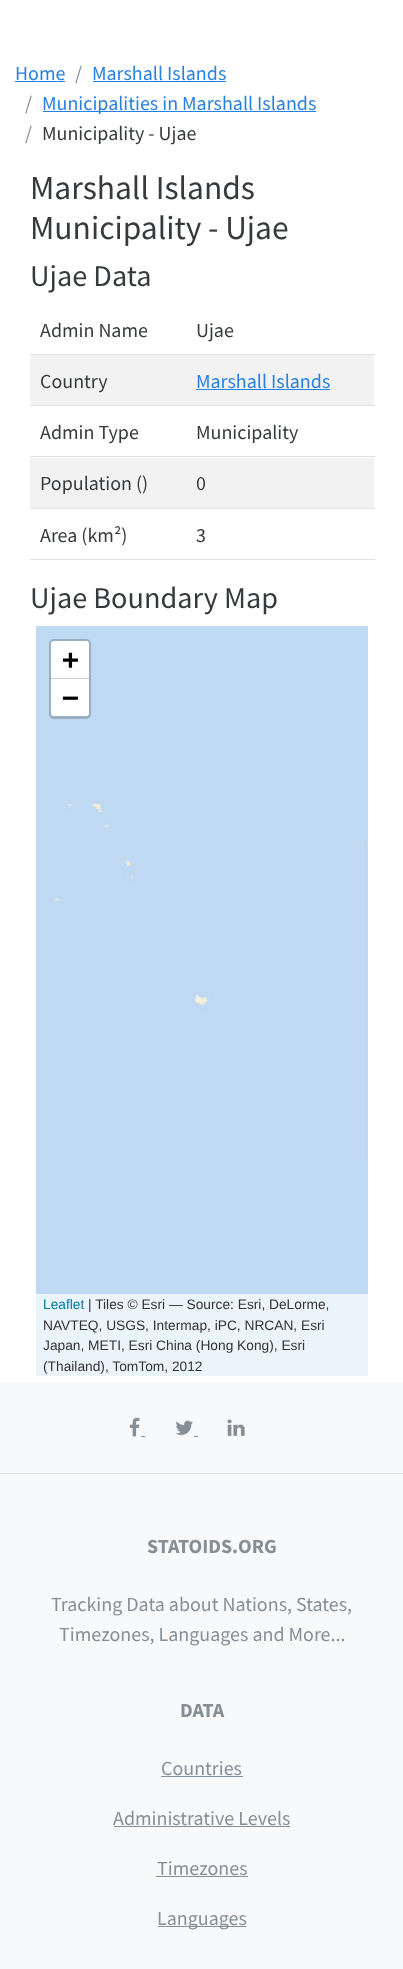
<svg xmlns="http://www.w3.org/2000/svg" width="403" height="1969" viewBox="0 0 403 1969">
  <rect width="100%" height="100%" fill="rgb(255,255,255)"/>
  <text x="15" y="80" font-family="Source Sans Pro" font-size="20" fill="rgb(39,128,227)">Home</text>
  <rect x="15" y="81" width="50" height="1" fill="rgb(39,128,227)"/>
  <text x="75" y="80" font-family="Source Sans Pro" font-size="20" fill="rgb(134,142,150)">/</text>
  <text x="92" y="80" font-family="Source Sans Pro" font-size="20" fill="rgb(39,128,227)">Marshall Islands</text>
  <rect x="93" y="81" width="133" height="1" fill="rgb(39,128,227)"/>
  <text x="25" y="110" font-family="Source Sans Pro" font-size="20" fill="rgb(134,142,150)">/</text>
  <rect x="43" y="111" width="273" height="1" fill="rgb(39,128,227)"/>
  <text x="42" y="110" font-family="Source Sans Pro" font-size="20" fill="rgb(39,128,227)">Municipalities in Marshall Islands</text>
  <text x="25" y="140" font-family="Source Sans Pro" font-size="20" fill="rgb(134,142,150)">/</text>
  <text x="42" y="140" font-family="Source Sans Pro" font-size="20" fill="rgb(55,58,60)">Municipality - Ujae</text>
  <g font-family="Source Sans Pro" font-size="33.5" fill="rgb(55,58,60)">
    <text>
      <tspan x="30" y="199">Marshall Islands</tspan>
      <tspan x="30" y="239">Municipality - Ujae</tspan>
    </text>
  </g>
  <text x="30" y="286" font-family="Source Sans Pro" font-size="30.25" fill="rgb(55,58,60)">Ujae Data</text>
  <text x="40" y="337" font-family="Source Sans Pro" font-size="20" fill="rgb(55,58,60)">Admin Name</text>
  <rect x="30" y="354" width="345" height="1" fill="rgb(222,226,230)"/>
  <text x="196" y="337" font-family="Source Sans Pro" font-size="20" fill="rgb(55,58,60)">Ujae</text>
  <rect x="30" y="355" width="344" height="50" fill="rgb(242,242,242)"/>
  <text x="40" y="388" font-family="Source Sans Pro" font-size="20" fill="rgb(55,58,60)">Country</text>
  <rect x="30" y="405" width="345" height="1" fill="rgb(222,226,230)"/>
  <text x="196" y="388" font-family="Source Sans Pro" font-size="20" fill="rgb(39,128,227)">Marshall Islands</text>
  <rect x="196" y="389" width="134" height="1" fill="rgb(39,128,227)"/>
  <text x="40" y="439" font-family="Source Sans Pro" font-size="20" fill="rgb(55,58,60)">Admin Type</text>
  <rect x="30" y="456" width="345" height="1" fill="rgb(222,226,230)"/>
  <text x="196" y="439" font-family="Source Sans Pro" font-size="20" fill="rgb(55,58,60)">Municipality</text>
  <rect x="30" y="458" width="344" height="50" fill="rgb(242,242,242)"/>
  <text x="40" y="490" font-family="Source Sans Pro" font-size="20" fill="rgb(55,58,60)">Population ()</text>
  <rect x="30" y="508" width="345" height="1" fill="rgb(222,226,230)"/>
  <g font-family="Source Sans Pro" font-size="20" fill="rgb(55,58,60)">
    <text x="196" y="490">0</text>
    <text x="40" y="542">Area (km²)</text>
  </g>
  <rect x="30" y="559" width="345" height="1" fill="rgb(222,226,230)"/>
  <text x="196" y="542" font-family="Source Sans Pro" font-size="20" fill="rgb(55,58,60)">3</text>
  <text x="30" y="608" font-family="Source Sans Pro" font-size="30.25" fill="rgb(55,58,60)">Ujae Boundary Map</text>
  <rect x="43" y="841" width="320" height="321" fill="rgb(221,221,221)"/>
  <rect x="36" y="626" width="7" height="536" fill="rgb(191,217,242)"/>
  <image x="43" y="626" width="320" height="216" href="pic1.png"/>
  <rect x="363" y="626" width="5" height="536" fill="rgb(191,217,242)"/>
  <image x="43" y="842" width="320" height="320" href="pic2.png"/>
  <rect x="36" y="1162" width="332" height="132" fill="rgb(191,217,242)"/>
  <rect x="50.5" y="640.5" width="39" height="77" rx="3.5" fill="none" stroke="rgb(153,174,194)" stroke-width="3"/>
  <path d="M53.5 641H86.5C88 641 89 642 89 643.5V679H51V643.5C51 642 52 641 53.5 641Z" fill="rgb(255,255,255)"/>
  <rect x="51" y="678" width="38" height="1" fill="rgb(204,204,204)"/>
  <text x="62" y="669" font-family="DejaVu Sans Mono" font-size="28" font-weight="bold" fill="rgb(0,0,0)">+</text>
  <path d="M51 679H89V713.5C89 715 88 716 86.5 716H53.5C52 716 51 715 51 713.5Z" fill="rgb(255,255,255)"/>
  <text x="62" y="707" font-family="DejaVu Sans Mono" font-size="28" font-weight="bold" fill="rgb(0,0,0)">−</text>
  <rect x="36" y="1294" width="332" height="82" fill="rgb(236,244,251)"/>
  <text x="43" y="1309" font-family="Liberation Sans" font-size="13.75" fill="rgb(0,120,168)">Leaflet</text>
  <g font-family="Liberation Sans" font-size="13.75" fill="rgb(51,51,51)">
    <text x="88" y="1309">| Tiles © Esri — Source: Esri, DeLorme,</text>
    <text>
      <tspan x="43" y="1330">NAVTEQ, USGS, Intermap, iPC, NRCAN, Esri</tspan>
      <tspan x="43" y="1350">Japan, METI, Esri China (Hong Kong), Esri</tspan>
      <tspan x="43" y="1371">(Thailand), TomTom, 2012</tspan>
    </text>
  </g>
  <rect x="0" y="1383" width="403" height="586" fill="rgb(248,249,250)"/>
  <rect x="0" y="1473" width="403" height="1" fill="rgb(222,226,230)"/>
  <image x="129" y="1417" width="11" height="20" href="pic3.png"/>
  <rect x="141" y="1436" width="4" height="1" fill="rgb(134,142,150)"/>
  <image x="175" y="1420" width="18" height="15" href="pic4.png"/>
  <rect x="194" y="1436" width="4" height="1" fill="rgb(134,142,150)"/>
  <image x="227" y="1419" width="18" height="17" href="pic5.png"/>
  <text x="147" y="1553" font-family="Source Sans Pro" font-size="20" font-weight="bold" fill="rgb(134,142,150)">STATOIDS.ORG</text>
  <g font-family="Source Sans Pro" font-size="20" fill="rgb(134,142,150)">
    <text x="51" y="1611">Tracking Data about Nations, States,</text>
    <text x="59" y="1641">Timezones, Languages and More...</text>
  </g>
  <text x="180" y="1717" font-family="Source Sans Pro" font-size="20" font-weight="bold" fill="rgb(134,142,150)">DATA</text>
  <text x="161" y="1775" font-family="Source Sans Pro" font-size="20" fill="rgb(134,142,150)">Countries</text>
  <rect x="161" y="1776" width="82" height="1" fill="rgb(134,142,150)"/>
  <text x="113" y="1825" font-family="Source Sans Pro" font-size="20" fill="rgb(134,142,150)">Administrative Levels</text>
  <rect x="114" y="1826" width="176" height="1" fill="rgb(134,142,150)"/>
  <text x="157" y="1875" font-family="Source Sans Pro" font-size="20" fill="rgb(134,142,150)">Timezones</text>
  <rect x="156" y="1876" width="92" height="1" fill="rgb(134,142,150)"/>
  <rect x="158" y="1926" width="88" height="1" fill="rgb(134,142,150)"/>
  <text x="157" y="1925" font-family="Source Sans Pro" font-size="20" fill="rgb(134,142,150)">Languages</text>
</svg>
